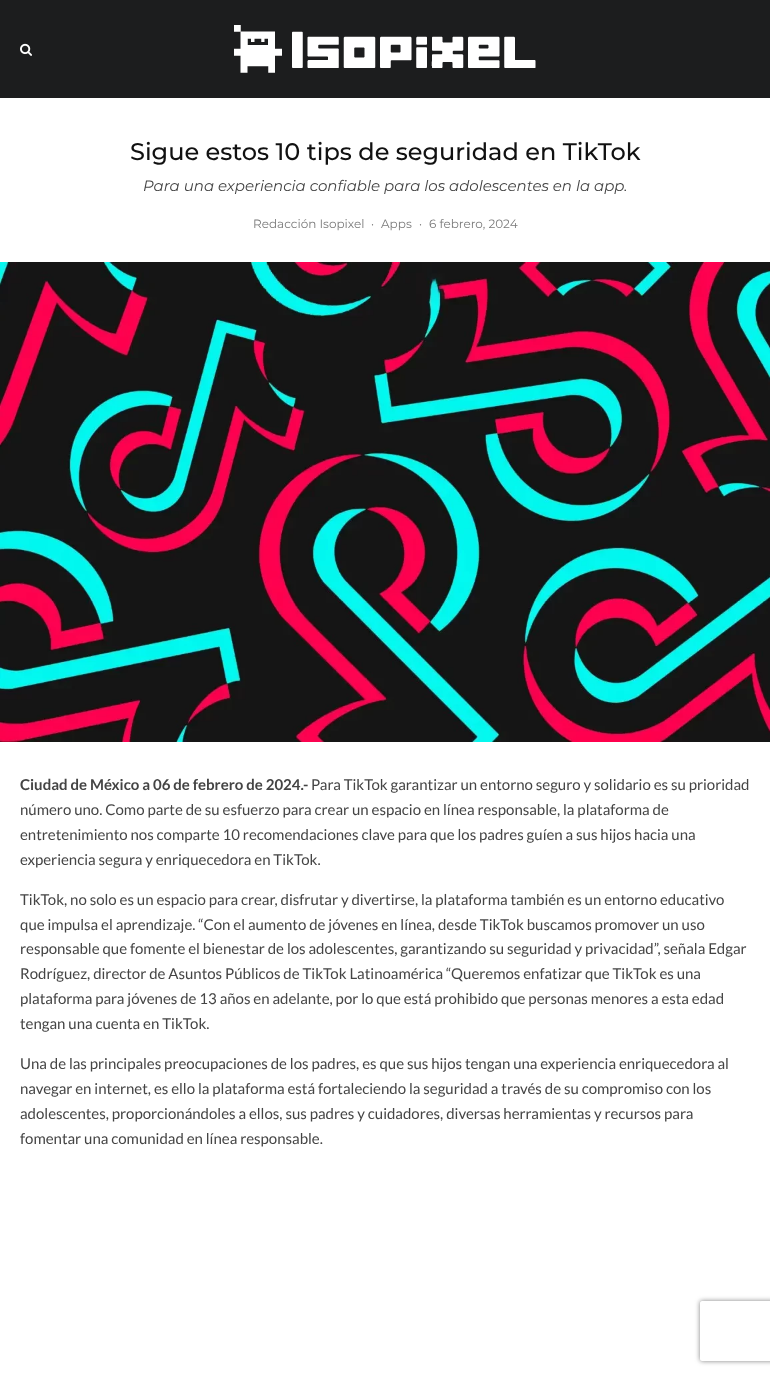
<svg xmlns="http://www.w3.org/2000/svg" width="770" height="1375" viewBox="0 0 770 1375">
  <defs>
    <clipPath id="clip1"><path d="M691 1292H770V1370H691ZM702 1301H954C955 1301 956 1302 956 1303V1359C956 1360 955 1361 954 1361H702C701 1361 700 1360 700 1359V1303C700 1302 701 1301 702 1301Z" clip-rule="evenodd"/></clipPath>
  </defs>
  <rect width="100%" height="100%" fill="rgb(255,255,255)"/>
  <rect x="0" y="0" width="770" height="98" fill="rgb(28,29,30)"/>
  <image x="20" y="43" width="12" height="13" href="pic1.png"/>
  <image x="234" y="25" width="302" height="48" href="pic2.png"/>
  <text x="130" y="160" font-family="Montserrat" font-size="24" font-weight="500" fill="rgb(17,17,17)">Sigue estos 10 tips de seguridad en TikTok</text>
  <text x="143" y="191" font-family="Montserrat" font-size="15" font-weight="100" font-style="italic" fill="rgb(68,68,68)">Para una experiencia confiable para los adolescentes en la app.</text>
  <g font-family="Montserrat" font-size="12" fill="rgb(122,122,122)">
    <text x="253" y="228">Redacción Isopixel</text>
    <text x="371" y="228">·</text>
    <text x="381" y="228">Apps</text>
    <text x="419" y="228">·</text>
    <text x="429" y="228">6 febrero, 2024</text>
  </g>
  <image x="0" y="262" width="770" height="480" href="pic3.png"/>
  <text x="20" y="790" font-family="Lato" font-size="15" font-weight="bold" fill="rgb(68,68,68)">Ciudad de México a 06 de febrero de 2024.-</text>
  <g font-family="Lato" font-size="15" fill="rgb(68,68,68)">
    <text x="311" y="790">Para TikTok garantizar un entorno seguro y solidario es su prioridad</text>
    <text>
      <tspan x="20" y="815">número uno. Como parte de su esfuerzo para crear un espacio en línea responsable, la plataforma de</tspan>
      <tspan x="20" y="840">entretenimiento nos comparte 10 recomendaciones clave para que los padres guíen a sus hijos hacia una</tspan>
      <tspan x="20" y="865">experiencia segura y enriquecedora en TikTok.</tspan>
    </text>
    <text>
      <tspan x="20" y="905">TikTok, no solo es un espacio para crear, disfrutar y divertirse, la plataforma también es un entorno educativo</tspan>
      <tspan x="20" y="930">que impulsa el aprendizaje. “Con el aumento de jóvenes en línea, desde TikTok buscamos promover un uso</tspan>
      <tspan x="20" y="954">responsable que fomente el bienestar de los adolescentes, garantizando su seguridad y privacidad”, señala Edgar</tspan>
      <tspan x="20" y="979">Rodríguez, director de Asuntos Públicos de TikTok Latinoamérica “Queremos enfatizar que TikTok es una</tspan>
      <tspan x="20" y="1004">plataforma para jóvenes de 13 años en adelante, por lo que está prohibido que personas menores a esta edad</tspan>
      <tspan x="20" y="1029">tengan una cuenta en TikTok.</tspan>
    </text>
    <text>
      <tspan x="20" y="1069">Una de las principales preocupaciones de los padres, es que sus hijos tengan una experiencia enriquecedora al</tspan>
      <tspan x="20" y="1094">navegar en internet, es ello la plataforma está fortaleciendo la seguridad a través de su compromiso con los</tspan>
      <tspan x="20" y="1119">adolescentes, proporcionándoles a ellos, sus padres y cuidadores, diversas herramientas y recursos para</tspan>
      <tspan x="20" y="1144">fomentar una comunidad en línea responsable.</tspan>
    </text>
  </g>
  <g clip-path="url(#clip1)">
    <rect x="700" y="1301" width="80" height="60" rx="2" fill="rgb(128,128,128)" filter="blur(2.5px)"/>
  </g>
</svg>
